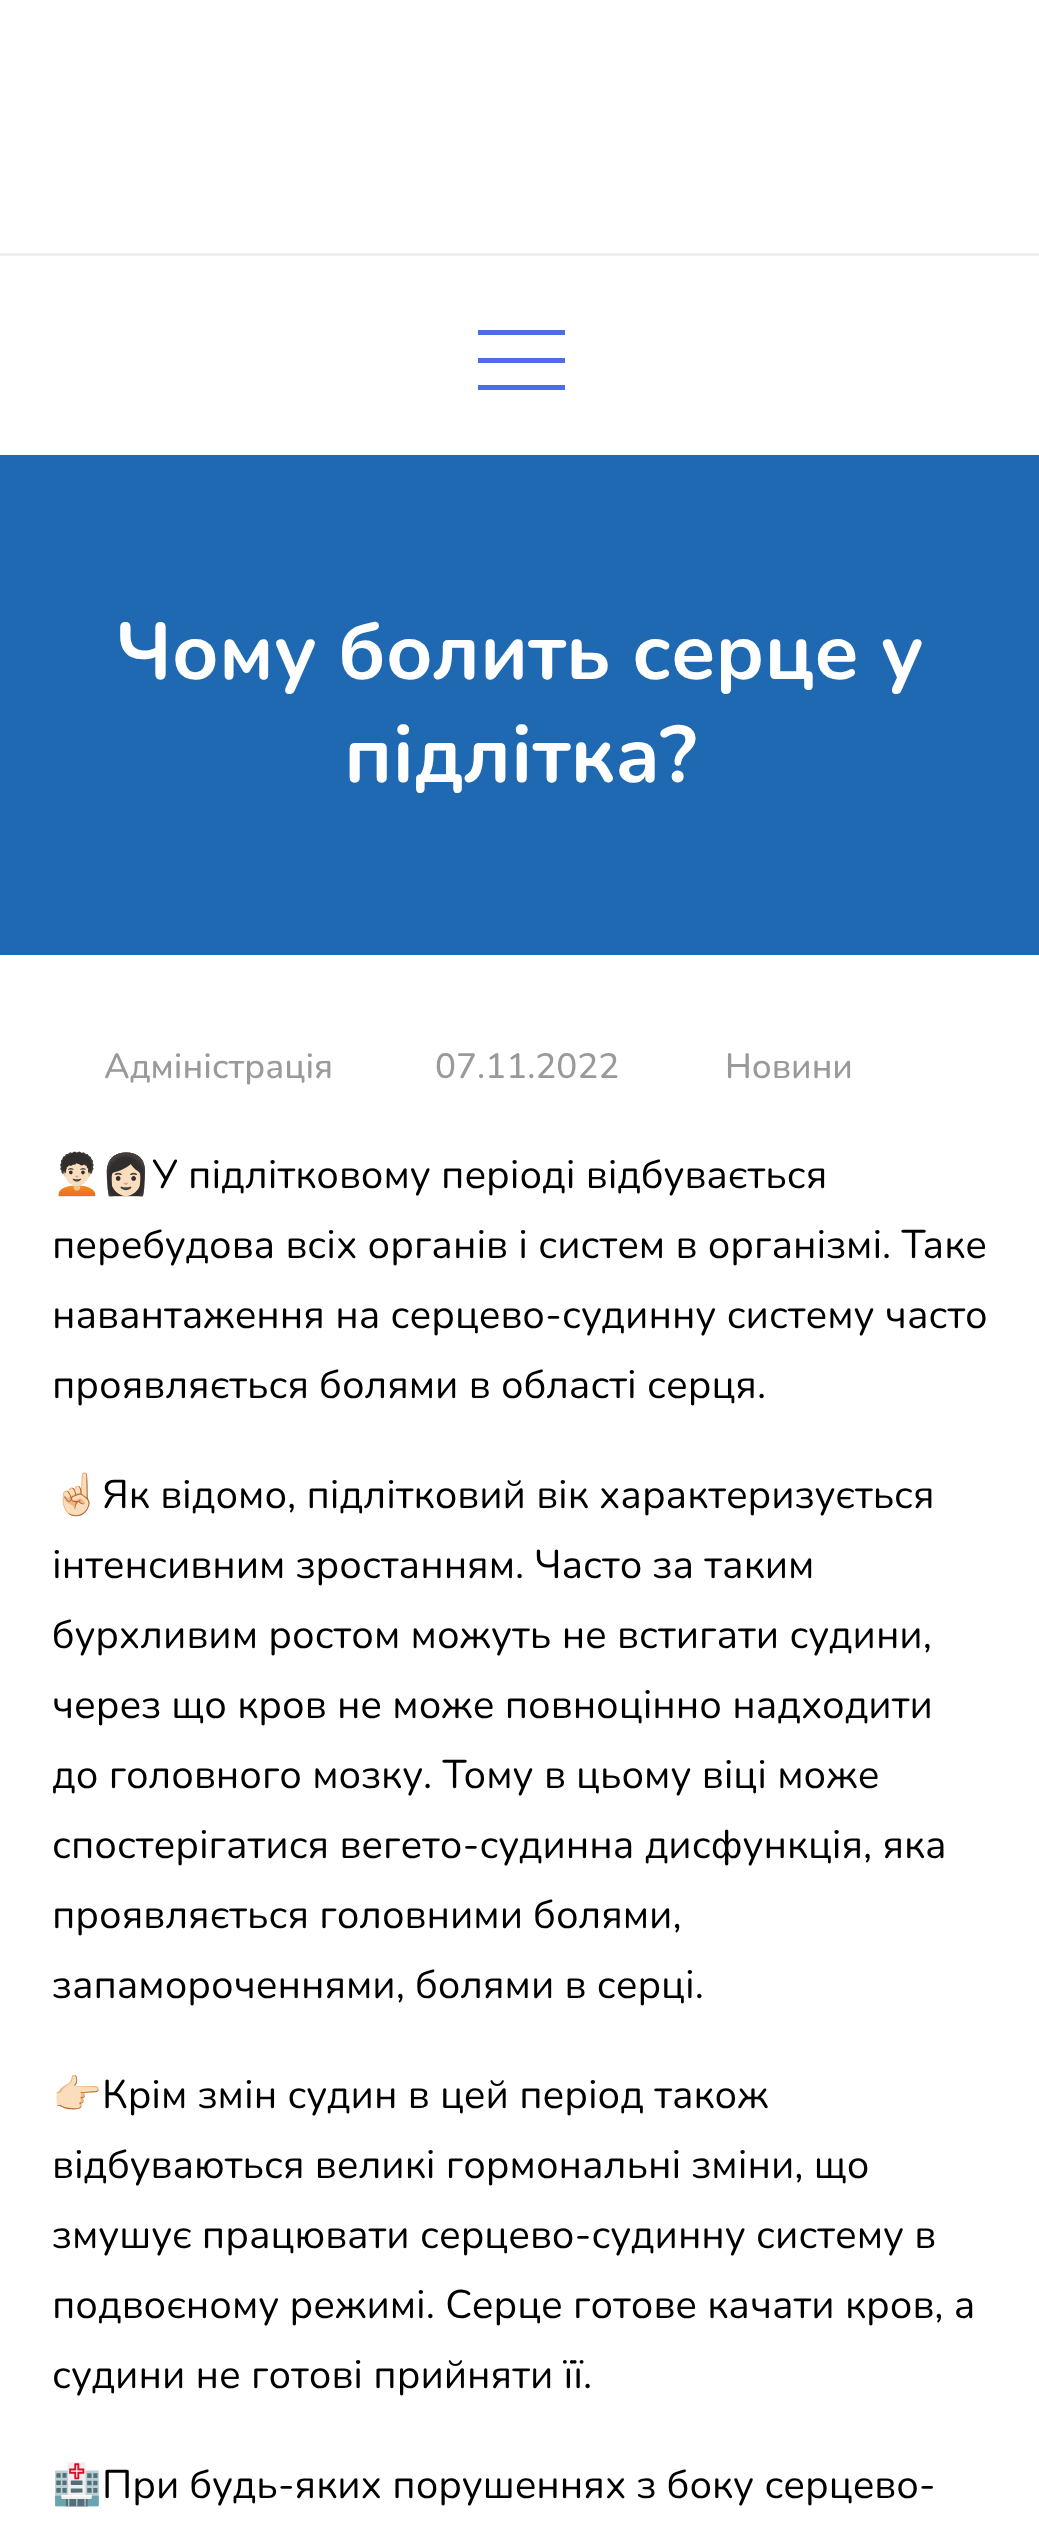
<svg xmlns="http://www.w3.org/2000/svg" width="1039" height="2541" viewBox="0 0 1039 2541">
  <rect width="100%" height="100%" fill="rgb(255,255,255)"/>
  <rect x="0" y="253" width="1039" height="3" fill="rgb(238,238,238)"/>
  <rect x="478" y="330" width="87" height="5" fill="rgb(77,109,230)"/>
  <rect x="478" y="358" width="87" height="5" fill="rgb(77,109,230)"/>
  <rect x="478" y="385" width="87" height="5" fill="rgb(77,109,230)"/>
  <rect x="0" y="455" width="1039" height="500" fill="rgb(31,105,178)"/>
  <g font-family="Nunito" font-size="80" font-weight="bold" fill="rgb(255,255,255)">
    <text x="116" y="679">Чому болить серце у</text>
    <text x="344" y="782">підлітка?</text>
  </g>
  <g font-family="Nunito" font-size="35" font-weight="500" fill="rgb(154,154,154)">
    <text x="104" y="1078">Адміністрація</text>
    <text x="435" y="1078">07.11.2022</text>
    <text x="725" y="1078">Новини</text>
  </g>
  <text x="52" y="1188" font-family="Noto Color Emoji" font-size="40" fill="rgb(0,0,0)">🧑🏻‍🦱👩🏻</text>
  <g font-family="Nunito" font-size="40" fill="rgb(0,0,0)">
    <text x="152" y="1188">У підлітковому періоді відбувається</text>
    <text>
      <tspan x="52" y="1258">перебудова всіх органів і систем в організмі. Таке</tspan>
      <tspan x="52" y="1328">навантаження на серцево-судинну систему часто</tspan>
      <tspan x="52" y="1398">проявляється болями в області серця.</tspan>
    </text>
  </g>
  <text x="52" y="1508" font-family="Noto Color Emoji" font-size="40" fill="rgb(0,0,0)">☝🏻</text>
  <g font-family="Nunito" font-size="40" fill="rgb(0,0,0)">
    <text x="102" y="1508">Як відомо, підлітковий вік характеризується</text>
    <text>
      <tspan x="52" y="1578">інтенсивним зростанням. Часто за таким</tspan>
      <tspan x="52" y="1648">бурхливим ростом можуть не встигати судини,</tspan>
      <tspan x="52" y="1718">через що кров не може повноцінно надходити</tspan>
      <tspan x="52" y="1788">до головного мозку. Тому в цьому віці може</tspan>
      <tspan x="52" y="1858">спостерігатися вегето-судинна дисфункція, яка</tspan>
      <tspan x="52" y="1928">проявляється головними болями,</tspan>
      <tspan x="52" y="1998">запамороченнями, болями в серці.</tspan>
    </text>
  </g>
  <text x="52" y="2108" font-family="Noto Color Emoji" font-size="40" fill="rgb(0,0,0)">👉🏻</text>
  <g font-family="Nunito" font-size="40" fill="rgb(0,0,0)">
    <text x="102" y="2108">Крім змін судин в цей період також</text>
    <text>
      <tspan x="52" y="2178">відбуваються великі гормональні зміни, що</tspan>
      <tspan x="52" y="2248">змушує працювати серцево-судинну систему в</tspan>
      <tspan x="52" y="2318">подвоєному режимі. Серце готове качати кров, а</tspan>
      <tspan x="52" y="2388">судини не готові прийняти її.</tspan>
    </text>
  </g>
  <text x="52" y="2498" font-family="Noto Color Emoji" font-size="40" fill="rgb(0,0,0)">🏥</text>
  <text x="102" y="2498" font-family="Nunito" font-size="40" fill="rgb(0,0,0)">При будь-яких порушеннях з боку серцево-</text>
</svg>
